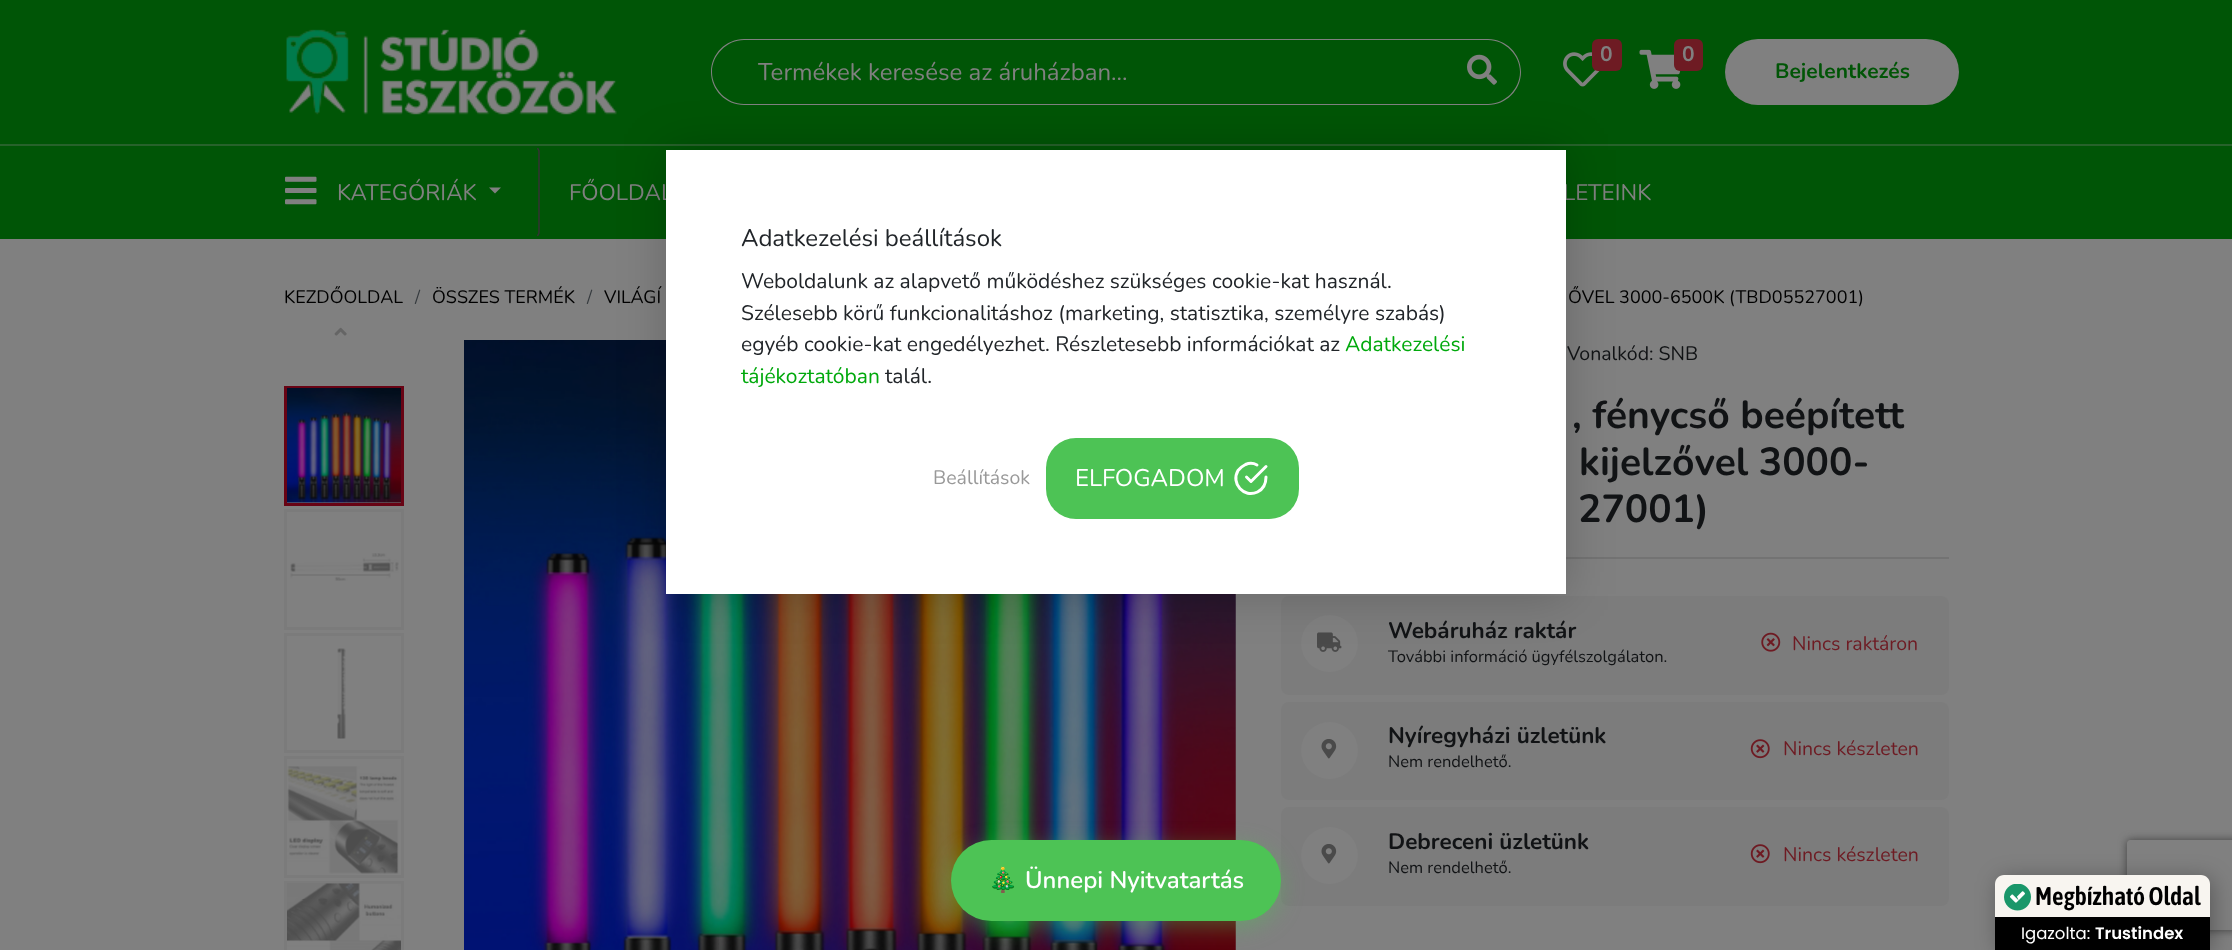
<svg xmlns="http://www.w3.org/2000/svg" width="2232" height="950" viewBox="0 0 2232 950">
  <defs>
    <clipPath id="clip1"><path d="M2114 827H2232V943H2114ZM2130 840H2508C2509.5 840 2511 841.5 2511 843V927C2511 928.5 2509.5 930 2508 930H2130C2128.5 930 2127 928.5 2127 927V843C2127 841.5 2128.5 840 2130 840Z" clip-rule="evenodd"/></clipPath>
  </defs>
  <rect width="100%" height="100%" fill="rgb(0,85,6)"/>
  <rect x="0" y="144" width="2232" height="2" fill="rgb(39,98,43)"/>
  <image x="286" y="29" width="331" height="86" href="pic1.png"/>
  <path d="M744 39H1446V105H744C726 105 711 90 711 72C711 54 726 39 744 39ZM744 40H1446V104H744C727 104 712 89 712 72C712 55 727 40 744 40Z" fill="rgb(128,128,128)" fill-rule="evenodd"/>
  <text x="758" y="80" font-family="Nunito" font-size="24" fill="rgb(128,128,128)">Termékek keresése az áruházban...</text>
  <path d="M1444 39H1488C1506 39 1521 54 1521 72C1521 90 1506 105 1488 105H1444ZM1444 40H1488C1505 40 1520 55 1520 72C1520 89 1505 104 1488 104H1444Z" fill="rgb(128,128,128)" fill-rule="evenodd"/>
  <image x="1467" y="54" width="30" height="31" href="pic2.png"/>
  <image x="1563" y="52" width="37" height="35" href="pic3.png"/>
  <rect x="1592" y="39" width="30" height="32" rx="6" fill="rgb(110,27,35)"/>
  <text x="1600" y="61" font-family="Nunito" font-size="21" font-weight="bold" fill="rgb(128,128,128)">0</text>
  <image x="1639" y="49" width="42" height="40" href="pic4.png"/>
  <rect x="1674" y="39" width="29" height="32" rx="6" fill="rgb(110,27,35)"/>
  <text x="1682" y="61" font-family="Nunito" font-size="21" font-weight="bold" fill="rgb(128,128,128)">0</text>
  <rect x="1725" y="39" width="234" height="66" rx="33" fill="rgb(128,128,128)"/>
  <text x="1775" y="78" font-family="Nunito" font-size="21" font-weight="bold" fill="rgb(0,85,6)">Bejelentkezés</text>
  <path d="M537.5 148L539 151V233L537.5 236" fill="none" stroke="rgb(51,51,51)" stroke-width="1.5"/>
  <image x="285" y="176" width="32" height="29" href="pic5.png"/>
  <text x="337" y="200" font-family="Nunito" font-size="22.5" fill="rgb(128,128,128)">KATEGÓRIÁK</text>
  <path d="M489 187.5H501L495 193.5Z" fill="rgb(128,128,128)"/>
  <g font-family="Nunito" font-size="22.5" fill="rgb(128,128,128)">
    <text x="569" y="200">FŐOLDAL</text>
    <text x="1563" y="200">LETEINK</text>
  </g>
  <rect x="0" y="239" width="2232" height="711" fill="rgb(128,128,128)"/>
  <image x="464" y="340" width="772" height="610" href="pic12.png"/>
  <rect x="1566" y="557" width="383" height="2" fill="rgb(115,115,115)"/>
  <rect x="1281" y="596" width="668" height="99" rx="8" fill="rgb(124,124,124)"/>
  <circle cx="1329.5" cy="643.5" r="28.5" fill="rgb(128,128,128)"/>
  <image x="1317" y="632" width="25" height="20" href="pic13.png"/>
  <rect x="666" y="150" width="900" height="444" fill="rgba(0,0,0,0.2)" filter="blur(24px)"/>
  <rect x="666" y="150" width="900" height="444" fill="rgb(255,255,255)"/>
  <text x="741" y="246" font-family="Nunito" font-size="24" fill="rgb(33,37,41)">Adatkezelési beállítások</text>
  <g font-family="Nunito" font-size="21" fill="rgb(33,37,41)">
    <text>
      <tspan x="741" y="288">Weboldalunk az alapvető működéshez szükséges cookie-kat használ.</tspan>
      <tspan x="741" y="320">Szélesebb körű funkcionalitáshoz (marketing, statisztika, személyre szabás)</tspan>
      <tspan x="741" y="351">egyéb cookie-kat engedélyezhet. Részletesebb információkat az</tspan>
    </text>
  </g>
  <g font-family="Nunito" font-size="21" fill="rgb(0,169,12)">
    <text x="1345" y="351">Adatkezelési</text>
    <text x="741" y="383">tájékoztatóban</text>
  </g>
  <text x="885" y="383" font-family="Nunito" font-size="21" fill="rgb(33,37,41)">talál.</text>
  <text x="933" y="484" font-family="Nunito" font-size="19.5" fill="rgb(153,153,153)">Beállítások</text>
  <rect x="1046" y="438" width="253" height="81" rx="30" fill="rgb(77,195,85)"/>
  <text x="1075" y="486" font-family="Nunito" font-size="24" fill="rgb(255,255,255)">ELFOGADOM</text>
  <path d="M1266 477C1266 483.5 1263.5 489 1257.5 492C1244 498.5 1230.5 483.5 1238 470.5C1240 468 1242.5 466 1245.5 464.5C1249 463 1253.5 463 1257 465M1266 466.5L1251 481.5L1246.5 477" fill="none" stroke="rgb(255,255,255)" stroke-width="3" stroke-linecap="round" stroke-linejoin="round"/>
  <text x="284" y="303" font-family="Nunito" font-size="18" fill="rgb(0,0,0)">KEZDŐOLDAL</text>
  <text x="415" y="303" font-family="Nunito" font-size="18" fill="rgb(54,59,63)">/</text>
  <text x="432" y="303" font-family="Nunito" font-size="18" fill="rgb(0,0,0)">ÖSSZES TERMÉK</text>
  <text x="587" y="303" font-family="Nunito" font-size="18" fill="rgb(54,59,63)">/</text>
  <g font-family="Nunito" font-size="18" fill="rgb(0,0,0)">
    <text x="604" y="303">VILÁGÍ</text>
    <text x="1568" y="303">ŐVEL 3000-6500K (TBD05527001)</text>
  </g>
  <image x="334" y="327" width="13" height="9" href="pic6.png"/>
  <rect x="285.5" y="387.5" width="117" height="117" fill="none" stroke="rgb(104,3,20)" stroke-width="3"/>
  <image x="287" y="388" width="114" height="115" href="pic7.png"/>
  <rect x="285.5" y="510.5" width="117" height="118" fill="none" stroke="rgb(123,123,123)" stroke-width="3"/>
  <image x="290" y="553" width="109" height="28" href="pic8.png"/>
  <rect x="285.5" y="634.5" width="117" height="117" fill="none" stroke="rgb(123,123,123)" stroke-width="3"/>
  <image x="337" y="648" width="9" height="91" href="pic9.png"/>
  <rect x="285.5" y="757.5" width="117" height="119" fill="none" stroke="rgb(123,123,123)" stroke-width="3"/>
  <image x="287" y="766" width="112" height="108" href="pic10.png"/>
  <rect x="285.5" y="882.5" width="117" height="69" fill="none" stroke="rgb(123,123,123)" stroke-width="3"/>
  <image x="287" y="883" width="114" height="67" href="pic11.png"/>
  <text x="1567" y="360" font-family="Nunito" font-size="19.5" fill="rgb(17,19,21)">Vonalkód: SNB</text>
  <g font-family="Nunito" font-size="39" font-weight="bold" fill="rgb(17,19,21)">
    <text x="1572" y="428">, fénycső beépített</text>
    <text x="1579" y="475">kijelzővel 3000-</text>
    <text x="1578" y="522">27001)</text>
  </g>
  <text x="1388" y="638" font-family="Nunito" font-size="22.5" font-weight="bold" fill="rgb(17,19,21)">Webáruház raktár</text>
  <text x="1388" y="662" font-family="Nunito" font-size="16.5" fill="rgb(17,19,21)">További információ ügyfélszolgálaton.</text>
  <image x="1761" y="632" width="20" height="20" href="pic14.png"/>
  <text x="1792" y="650" font-family="Nunito" font-size="19.5" fill="rgb(110,27,35)">Nincs raktáron</text>
  <rect x="1281" y="702" width="668" height="98" rx="8" fill="rgb(124,124,124)"/>
  <circle cx="1329.5" cy="750.5" r="28.5" fill="rgb(128,128,128)"/>
  <image x="1321" y="739" width="16" height="20" href="pic15.png"/>
  <text x="1388" y="743" font-family="Nunito" font-size="22.5" font-weight="bold" fill="rgb(17,19,21)">Nyíregyházi üzletünk</text>
  <text x="1388" y="767" font-family="Nunito" font-size="16.5" fill="rgb(17,19,21)">Nem rendelhető.</text>
  <image x="1750" y="739" width="20" height="20" href="pic16.png"/>
  <text x="1783" y="755" font-family="Nunito" font-size="19.5" fill="rgb(110,27,35)">Nincs készleten</text>
  <rect x="1281" y="807" width="668" height="99" rx="8" fill="rgb(124,124,124)"/>
  <circle cx="1329.5" cy="855.5" r="28.5" fill="rgb(128,128,128)"/>
  <image x="1321" y="844" width="16" height="20" href="pic15.png"/>
  <text x="1388" y="849" font-family="Nunito" font-size="22.5" font-weight="bold" fill="rgb(17,19,21)">Debreceni üzletünk</text>
  <text x="1388" y="873" font-family="Nunito" font-size="16.5" fill="rgb(17,19,21)">Nem rendelhető.</text>
  <image x="1750" y="844" width="20" height="20" href="pic16.png"/>
  <text x="1783" y="861" font-family="Nunito" font-size="19.5" fill="rgb(110,27,35)">Nincs készleten</text>
  <g clip-path="url(#clip1)">
    <rect x="2127" y="840" width="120" height="90" rx="3" fill="rgb(64,64,64)" filter="blur(4px)"/>
  </g>
  <rect x="951" y="846" width="330" height="81" rx="40.5" fill="rgba(77,195,85,0.4)" filter="blur(11px)"/>
  <rect x="951" y="840" width="330" height="81" rx="40.5" fill="rgb(77,195,85)"/>
  <text x="988" y="888" font-family="Noto Color Emoji" font-size="24" font-weight="bold" fill="rgb(255,255,255)">🎄</text>
  <text x="1025" y="888" font-family="Nunito" font-size="24" font-weight="600" fill="rgb(255,255,255)">Ünnepi Nyitvatartás</text>
  <rect x="1998" y="878" width="215" height="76" rx="9" fill="rgba(0,0,0,0.3)" filter="blur(11px)"/>
  <path d="M2004 875H2201C2206 875 2210 879 2210 884V917H1995V884C1995 879 1999 875 2004 875Z" fill="rgb(248,245,240)"/>
  <image x="2004" y="884" width="27" height="27" href="pic17.png"/>
  <text x="2035" y="905" font-family="Asap Condensed" font-size="25.5" font-weight="600" fill="rgb(0,0,0)">Megbízható Oldal</text>
  <rect x="1995" y="917" width="215" height="33" fill="rgb(0,0,0)"/>
  <text x="2021" y="939" font-family="Poppins" font-size="16.5" fill="rgb(255,255,255)">Igazolta:</text>
  <text x="2095" y="939" font-family="Poppins" font-size="16.5" font-weight="600" fill="rgb(255,255,255)">Trustindex</text>
</svg>
